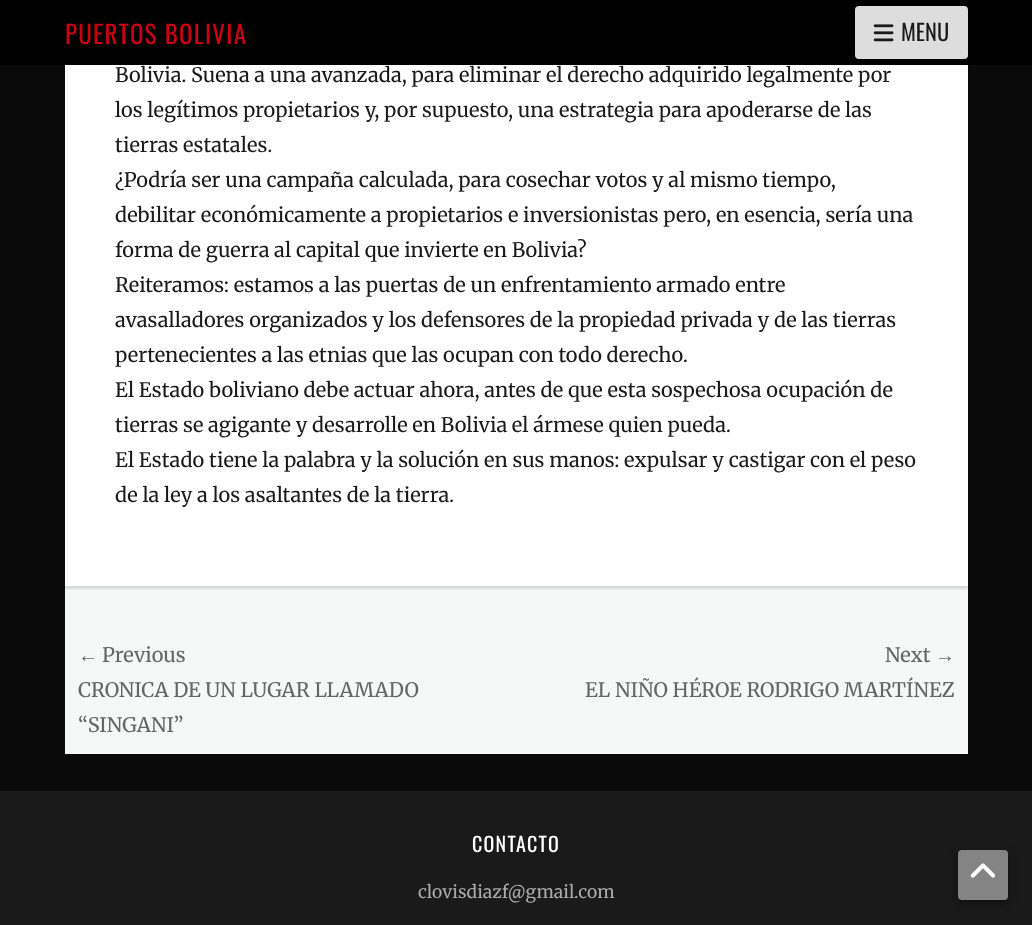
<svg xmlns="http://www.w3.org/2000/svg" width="1032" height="925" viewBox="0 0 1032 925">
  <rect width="100%" height="100%" fill="rgb(10,10,10)"/>
  <rect x="65" y="586" width="903" height="168" fill="rgb(246,247,247)"/>
  <rect x="65" y="-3" width="903" height="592" fill="rgba(0,0,0,0.12)" filter="blur(1px)"/>
  <rect x="0" y="0" width="1032" height="65" fill="rgb(0,0,0)"/>
  <text x="65" y="44" font-family="Oswald" font-size="25" letter-spacing="1.25" fill="rgb(204,0,20)">PUERTOS BOLIVIA</text>
  <rect x="855" y="6" width="113" height="53" rx="4" fill="rgb(221,221,221)"/>
  <image x="873" y="24" width="21" height="18" href="pic1.png"/>
  <text x="901" y="41" font-family="Oswald" font-size="22.5" fill="rgb(26,26,26)">MENU</text>
  <rect x="65" y="65" width="903" height="521" fill="rgb(255,255,255)"/>
  <g font-family="Merriweather" font-size="20" font-weight="300" fill="rgb(26,26,26)">
    <text>
      <tspan x="115" y="82">Bolivia. Suena a una avanzada, para eliminar el derecho adquirido legalmente por</tspan>
      <tspan x="115" y="117">los legítimos propietarios y, por supuesto, una estrategia para apoderarse de las</tspan>
      <tspan x="115" y="152">tierras estatales.</tspan>
      <tspan x="115" y="187">¿Podría ser una campaña calculada, para cosechar votos y al mismo tiempo,</tspan>
      <tspan x="115" y="222">debilitar económicamente a propietarios e inversionistas pero, en esencia, sería una</tspan>
      <tspan x="115" y="257">forma de guerra al capital que invierte en Bolivia?</tspan>
      <tspan x="115" y="292">Reiteramos: estamos a las puertas de un enfrentamiento armado entre</tspan>
      <tspan x="115" y="327">avasalladores organizados y los defensores de la propiedad privada y de las tierras</tspan>
      <tspan x="115" y="362">pertenecientes a las etnias que las ocupan con todo derecho.</tspan>
      <tspan x="115" y="397">El Estado boliviano debe actuar ahora, antes de que esta sospechosa ocupación de</tspan>
      <tspan x="115" y="432">tierras se agigante y desarrolle en Bolivia el ármese quien pueda.</tspan>
      <tspan x="115" y="467">El Estado tiene la palabra y la solución en sus manos: expulsar y castigar con el peso</tspan>
      <tspan x="115" y="502">de la ley a los asaltantes de la tierra.</tspan>
    </text>
  </g>
  <text x="78" y="662" font-family="Liberation Serif" font-size="20" fill="rgb(102,102,102)">←</text>
  <g font-family="Merriweather" font-size="20" font-weight="300" fill="rgb(102,102,102)">
    <text x="102" y="662">Previous</text>
    <text>
      <tspan x="78" y="697">CRONICA DE UN LUGAR LLAMADO</tspan>
      <tspan x="78" y="732">“SINGANI”</tspan>
    </text>
    <text x="885" y="662">Next</text>
  </g>
  <text x="935" y="662" font-family="Liberation Serif" font-size="20" fill="rgb(102,102,102)">→</text>
  <text x="585" y="697" font-family="Merriweather" font-size="20" font-weight="300" fill="rgb(102,102,102)">EL NIÑO HÉROE RODRIGO MARTÍNEZ</text>
  <rect x="0" y="791" width="1032" height="134" fill="rgb(26,26,26)"/>
  <text x="472" y="852" font-family="Oswald" font-size="20" letter-spacing="1.25" fill="rgb(255,255,255)">CONTACTO</text>
  <text x="418" y="898" font-family="Merriweather" font-size="17.5" font-weight="300" fill="rgb(170,170,170)">clovisdiazf@gmail.com</text>
  <rect x="958" y="853" width="50" height="50" rx="4" fill="rgba(1,1,1,0.5)" filter="blur(4px)"/>
  <rect x="958" y="850" width="50" height="50" rx="4" fill="rgb(132,132,132)"/>
  <image x="970" y="863" width="26" height="15" href="pic2.png"/>
</svg>
